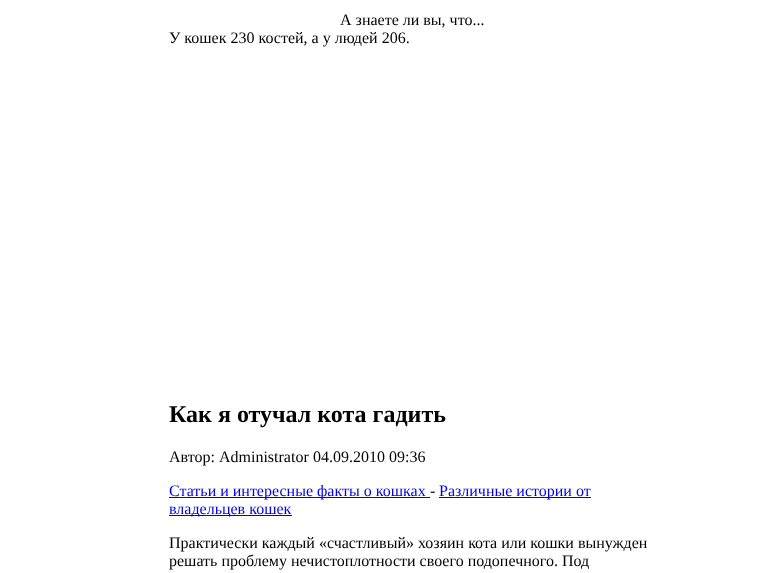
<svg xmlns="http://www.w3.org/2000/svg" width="779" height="573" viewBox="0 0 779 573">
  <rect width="100%" height="100%" fill="rgb(255,255,255)"/>
  <g font-family="Liberation Serif" font-size="16" fill="rgb(0,0,0)">
    <text x="340" y="25">А знаете ли вы, что...</text>
    <text x="169" y="43">У кошек 230 костей, а у людей 206.</text>
  </g>
  <text x="169" y="422" font-family="Liberation Serif" font-size="24" font-weight="bold" fill="rgb(0,0,0)">Как я отучал кота гадить</text>
  <g font-family="Liberation Serif" font-size="16" fill="rgb(0,0,0)">
    <text x="169" y="462">Автор: Administrator</text>
    <text x="313" y="462">04.09.2010 09:36</text>
  </g>
  <rect x="169" y="497" width="261" height="1" fill="rgb(0,0,238)"/>
  <text x="169" y="496" font-family="Liberation Serif" font-size="16" fill="rgb(0,0,238)">Статьи и интересные факты о кошках</text>
  <text x="430" y="496" font-family="Liberation Serif" font-size="16" fill="rgb(0,0,0)">-</text>
  <rect x="439" y="497" width="152" height="1" fill="rgb(0,0,238)"/>
  <text x="439" y="496" font-family="Liberation Serif" font-size="16" fill="rgb(0,0,238)">Различные истории от</text>
  <rect x="169" y="515" width="123" height="1" fill="rgb(0,0,238)"/>
  <text x="169" y="514" font-family="Liberation Serif" font-size="16" fill="rgb(0,0,238)">владельцев кошек</text>
  <g font-family="Liberation Serif" font-size="16" fill="rgb(0,0,0)">
    <text>
      <tspan x="169" y="548">Практически каждый «счастливый» хозяин кота или кошки вынужден</tspan>
      <tspan x="169" y="566">решать проблему нечистоплотности своего подопечного. Под</tspan>
    </text>
  </g>
</svg>
